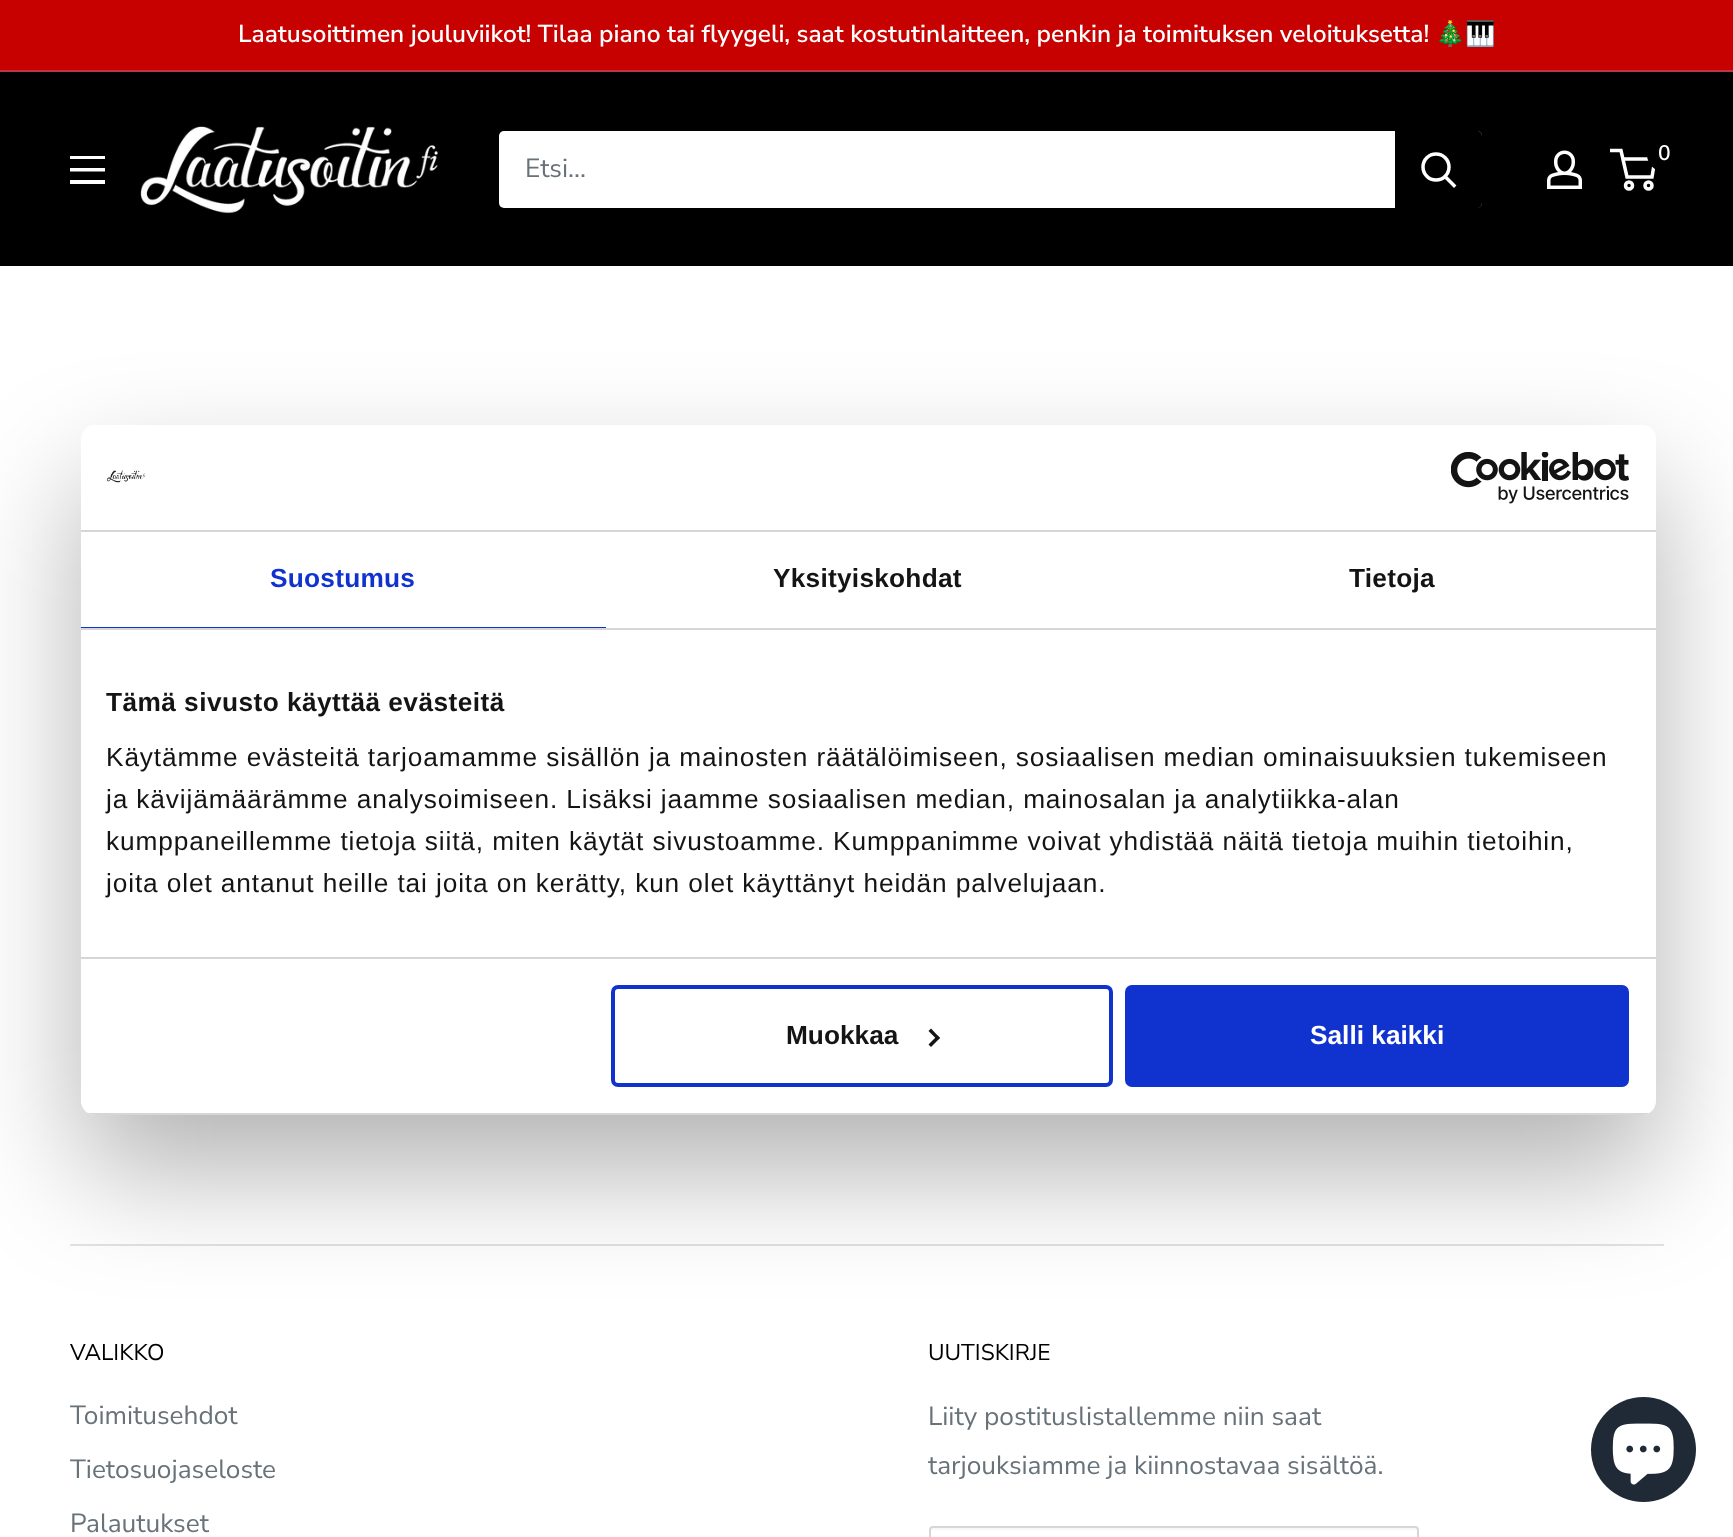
<svg xmlns="http://www.w3.org/2000/svg" width="1733" height="1537" viewBox="0 0 1733 1537">
  <defs>
    <clipPath id="clip1"><rect x="81" y="425" width="1575" height="690" rx="14"/></clipPath>
  </defs>
  <rect width="100%" height="100%" fill="rgb(255,255,255)"/>
  <rect x="0" y="0" width="1733" height="70" fill="rgb(199,0,0)"/>
  <rect x="0" y="70" width="1733" height="2" fill="rgb(188,53,72)"/>
  <text x="238" y="42" font-family="Nunito Sans" font-size="24.5" font-weight="600" fill="rgb(255,255,255)">Laatusoittimen jouluviikot! Tilaa piano tai flyygeli, saat kostutinlaitteen, penkin ja toimituksen veloituksetta!</text>
  <text x="1435" y="42" font-family="Noto Color Emoji" font-size="24.5" font-weight="bold" fill="rgb(255,255,255)">🎄🎹</text>
  <rect x="0" y="72" width="1733" height="194" fill="rgb(0,0,0)"/>
  <image x="140" y="126" width="298" height="88" href="pic1.png"/>
  <image x="1547" y="150" width="35" height="39" href="pic2.png"/>
  <circle cx="1629" cy="185.5" r="3.5" fill="none" stroke="rgb(255,255,255)" stroke-width="3.5"/>
  <circle cx="1648.5" cy="185.5" r="3.5" fill="none" stroke="rgb(255,255,255)" stroke-width="3.5"/>
  <path d="M1623 159H1655L1652 177H1627L1621 150.5H1610" fill="none" stroke="rgb(255,255,255)" stroke-width="3.5"/>
  <circle cx="1664.5" cy="154.5" r="17.5" fill="rgb(0,0,0)"/>
  <text x="1658" y="160" font-family="Nunito Sans" font-size="21" font-weight="600" fill="rgb(255,255,255)">0</text>
  <path d="M70 180H105V184H70ZM70 156H105V159H70ZM70 168H105V171.5H70Z" fill="rgb(255,255,255)" fill-rule="evenodd"/>
  <rect x="499" y="131" width="983" height="77" rx="5" fill="rgb(255,255,255)"/>
  <text x="525" y="177" font-family="Nunito Sans" font-size="26.25" fill="rgb(103,114,121)">Etsi...</text>
  <path d="M1395 131H1477C1480 131 1482 133 1482 136V203C1482 206 1480 208 1477 208H1395Z" fill="rgb(0,0,0)"/>
  <path d="M1454 185.5L1445.5 177" fill="none" stroke="rgb(255,255,255)" stroke-width="3.5" stroke-linecap="square"/>
  <circle cx="1436" cy="167" r="13" fill="none" stroke="rgb(255,255,255)" stroke-width="3.5"/>
  <rect x="70" y="1244" width="1594" height="2" fill="rgb(225,227,228)"/>
  <rect x="81" y="481" width="1575" height="690" rx="14" fill="rgba(0,0,0,0.3)" filter="blur(59.5px)"/>
  <rect x="81" y="425" width="1575" height="690" rx="14" fill="rgb(255,255,255)"/>
  <rect x="81" y="530" width="1575" height="2" fill="rgb(214,214,214)"/>
  <image x="106" y="470" width="40" height="13" href="pic3.png"/>
  <image x="1451" y="452" width="178" height="52" href="pic4.png"/>
  <rect x="81" y="628" width="1575" height="2" fill="rgb(214,214,214)"/>
  <rect x="81" y="627" width="525" height="1" fill="rgb(16,50,207)"/>
  <text x="270" y="587" font-family="Liberation Sans" font-size="26.25" font-weight="bold" letter-spacing="0.25" fill="rgb(16,50,207)">Suostumus</text>
  <g font-family="Liberation Sans" font-size="26.25" font-weight="bold" letter-spacing="0.25" fill="rgb(20,20,20)">
    <text x="773" y="587">Yksityiskohdat</text>
    <text x="1349" y="587">Tietoja</text>
  </g>
  <rect x="81" y="957" width="1575" height="2" fill="rgb(214,214,214)"/>
  <text x="106" y="711" font-family="Liberation Sans" font-size="26.25" font-weight="bold" letter-spacing="0.45" fill="rgb(20,20,20)">Tämä sivusto käyttää evästeitä</text>
  <g font-family="Liberation Sans" font-size="26.25" letter-spacing="0.88" fill="rgb(20,20,20)">
    <text>
      <tspan x="106" y="766">Käytämme evästeitä tarjoamamme sisällön ja mainosten räätälöimiseen, sosiaalisen median ominaisuuksien tukemiseen</tspan>
      <tspan x="106" y="808">ja kävijämäärämme analysoimiseen. Lisäksi jaamme sosiaalisen median, mainosalan ja analytiikka-alan</tspan>
      <tspan x="106" y="850">kumppaneillemme tietoja siitä, miten käytät sivustoamme. Kumppanimme voivat yhdistää näitä tietoja muihin tietoihin,</tspan>
      <tspan x="106" y="892">joita olet antanut heille tai joita on kerätty, kun olet käyttänyt heidän palvelujaan.</tspan>
    </text>
  </g>
  <g clip-path="url(#clip1)">
    <rect x="81" y="1113" width="1575" height="2" fill="rgb(214,214,214)"/>
  </g>
  <rect x="613" y="987" width="498" height="98" rx="5" fill="none" stroke="rgb(16,50,207)" stroke-width="4"/>
  <text x="786" y="1044" font-family="Liberation Sans" font-size="26.25" font-weight="bold" fill="rgb(20,20,20)">Muokkaa</text>
  <path d="M931 1028.5L940 1038L937.5 1040L928.5 1031Z" fill="rgb(20,20,20)"/>
  <path d="M937.5 1035.5L940 1038L931 1047L928.5 1044.5Z" fill="rgb(20,20,20)"/>
  <rect x="1127" y="987" width="500" height="98" rx="5" fill="rgb(16,50,207)" stroke="rgb(16,50,207)" stroke-width="4"/>
  <text x="1310" y="1044" font-family="Liberation Sans" font-size="26.25" font-weight="bold" fill="rgb(255,255,255)">Salli kaikki</text>
  <text x="70" y="1360" font-family="Nunito Sans" font-size="22.75" fill="rgb(0,0,0)">VALIKKO</text>
  <g font-family="Nunito Sans" font-size="26.25" fill="rgb(103,114,121)">
    <text x="70" y="1424">Toimitusehdot</text>
    <text x="70" y="1478">Tietosuojaseloste</text>
    <text x="70" y="1532">Palautukset</text>
  </g>
  <text x="928" y="1360" font-family="Nunito Sans" font-size="22.75" fill="rgb(0,0,0)">UUTISKIRJE</text>
  <g font-family="Nunito Sans" font-size="26.25" fill="rgb(103,114,121)">
    <text>
      <tspan x="928" y="1425">Liity postituslistallemme niin saat</tspan>
      <tspan x="928" y="1474">tarjouksiamme ja kiinnostavaa sisältöä.</tspan>
    </text>
  </g>
  <path d="M933 1530H1416C1417 1530 1418 1530 1418 1531V1529L1416 1528H933C931 1528 931 1530 931 1531C931 1530 932 1530 933 1530Z" fill="rgb(248,248,248)"/>
  <rect x="930" y="1527" width="488" height="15" rx="3" fill="none" stroke="rgb(212,214,216)" stroke-width="2"/>
  <circle cx="1643.5" cy="1449.5" r="52.5" fill="rgb(32,42,54)"/>
  <image x="1612" y="1423" width="62" height="62" href="pic5.png"/>
</svg>
